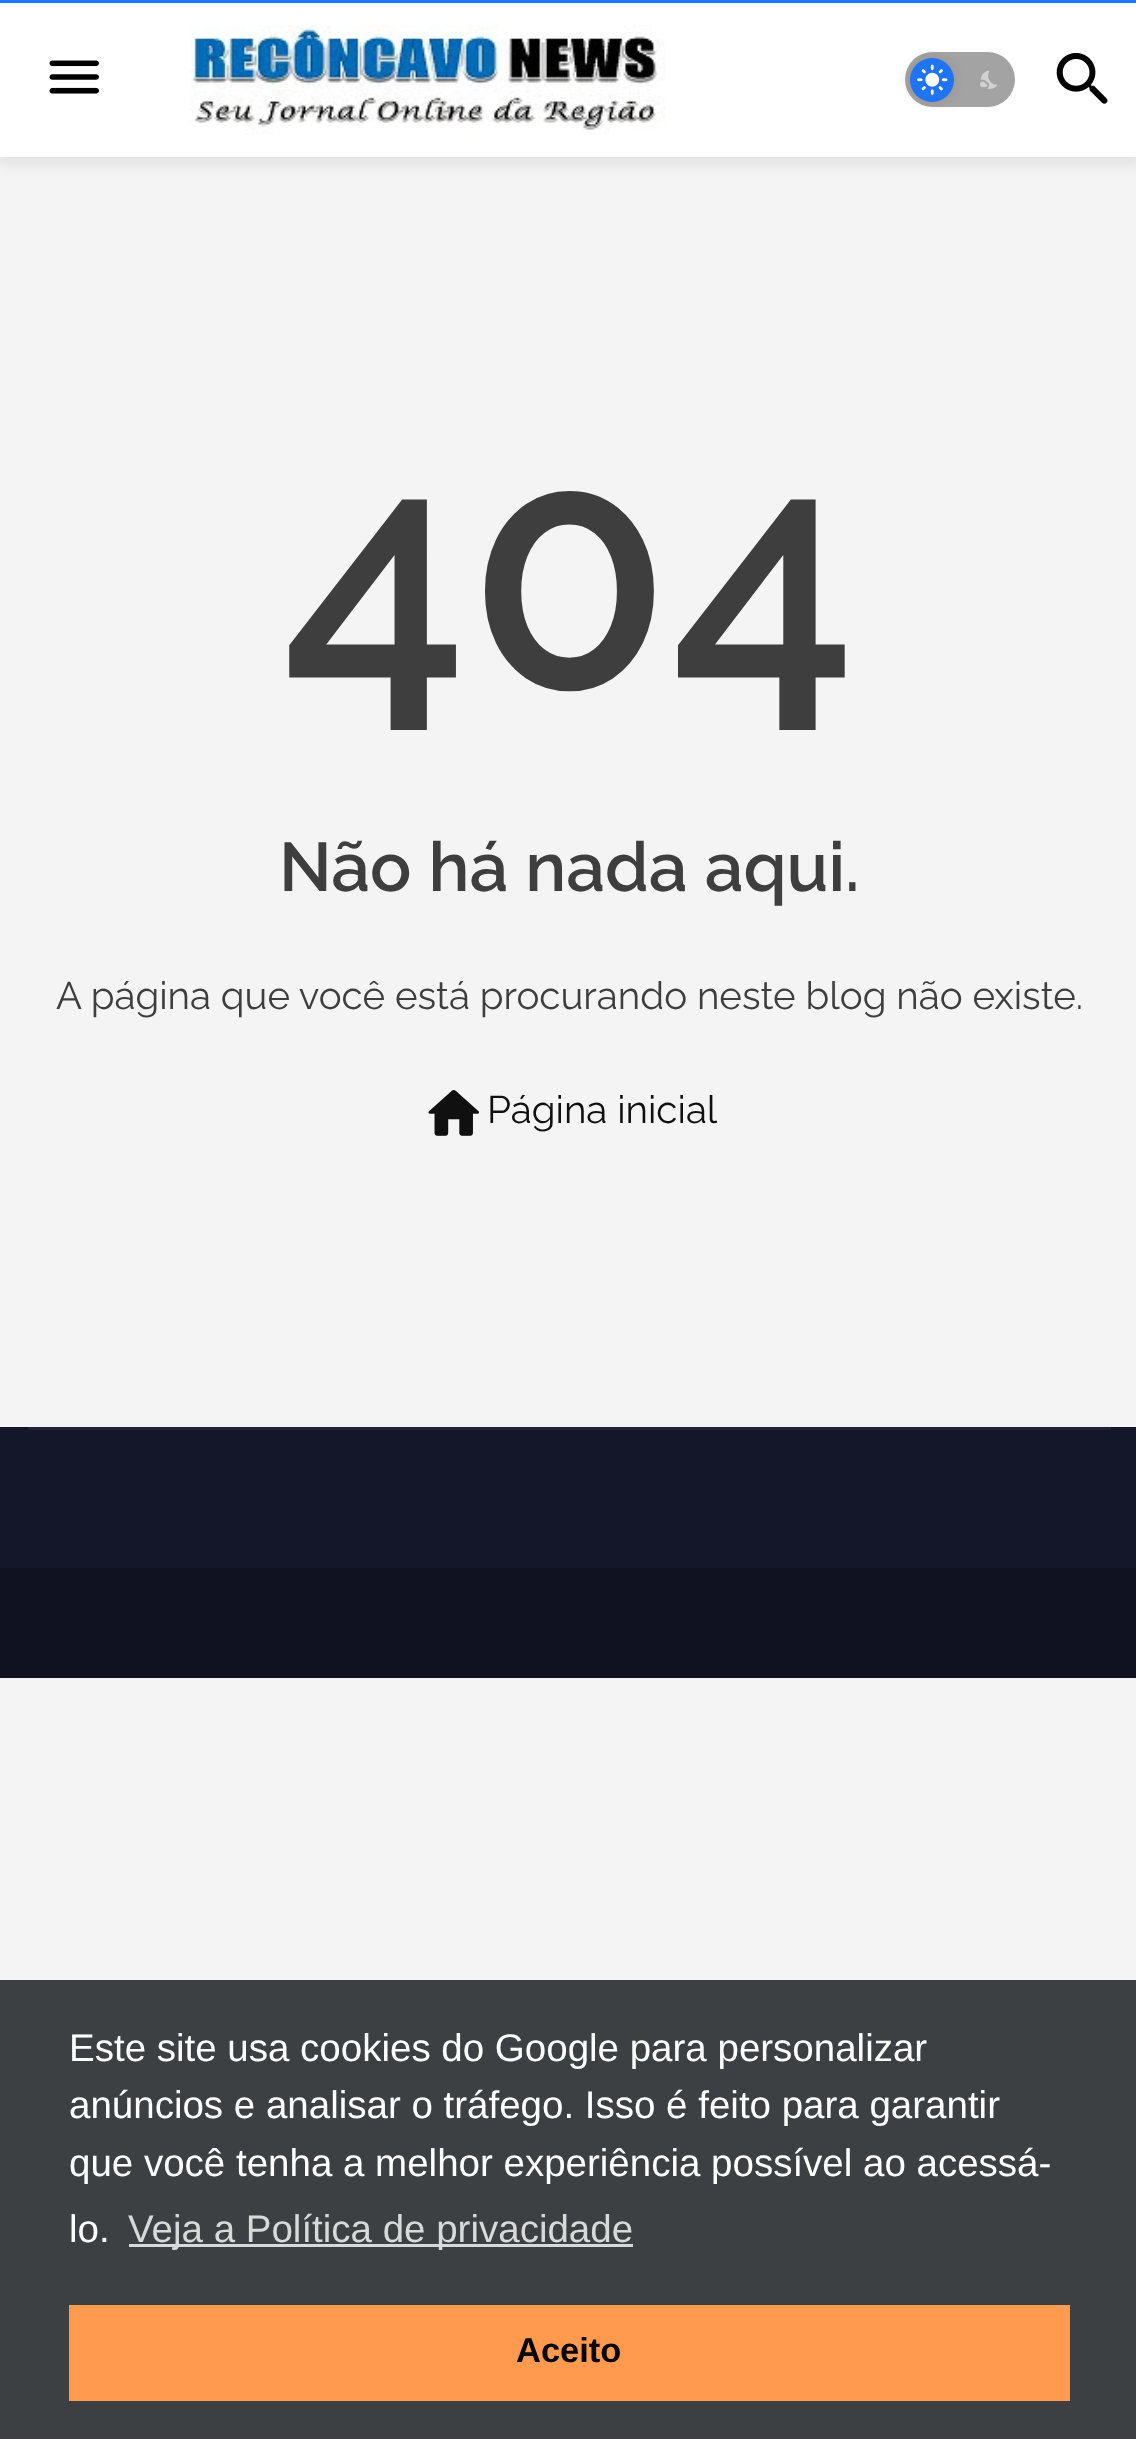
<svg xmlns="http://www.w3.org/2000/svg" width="1136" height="2439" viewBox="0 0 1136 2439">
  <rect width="100%" height="100%" fill="rgb(244,244,244)"/>
  <rect x="-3" y="3" width="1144" height="162" fill="rgba(0,0,0,0.07)" filter="blur(7px)"/>
  <rect x="0" y="3" width="1136" height="154" fill="rgb(255,255,255)"/>
  <rect x="0" y="0" width="1136" height="3" fill="rgb(30,116,244)"/>
  <image x="49" y="60" width="50" height="34" href="pic1.png"/>
  <image x="190" y="24" width="476" height="111" href="pic2.png"/>
  <rect x="905" y="52" width="110" height="55" rx="27.5" fill="rgb(163,163,163)"/>
  <rect x="910" y="58" width="44" height="44" rx="22" fill="rgba(0,0,0,0.1)" filter="blur(5.5px)"/>
  <circle cx="932" cy="80" r="22" fill="rgb(30,116,244)"/>
  <image x="917" y="64" width="31" height="31" href="pic3.png"/>
  <image x="980" y="70" width="18" height="19" href="pic4.png"/>
  <image x="1056" y="52" width="52" height="52" href="pic5.png"/>
  <text x="282" y="688" font-family="Raleway" font-size="330" font-weight="600" fill="rgb(62,62,62)">404</text>
  <text x="279" y="891" font-family="Raleway" font-size="68.75" font-weight="600" fill="rgb(62,62,62)">Não há nada aqui.</text>
  <text x="56" y="1009" font-family="Raleway" font-size="38.5" fill="rgb(62,62,62)">A página que você está procurando neste blog não existe.</text>
  <image x="428" y="1090" width="51" height="46" href="pic6.png"/>
  <text x="487" y="1123" font-family="Raleway" font-size="38.5" fill="rgb(16,16,16)">Página inicial</text>
  <rect x="0" y="1427" width="1136" height="141" fill="rgb(20,22,41)"/>
  <rect x="28" y="1427" width="1083" height="3" fill="rgb(34,35,52)"/>
  <rect x="0" y="1568" width="1136" height="110" fill="rgb(16,17,33)"/>
  <rect x="0" y="1980" width="1136" height="459" fill="rgb(60,64,66)"/>
  <g font-family="Liberation Sans" font-size="38.5" fill="rgb(255,255,255)">
    <text>
      <tspan x="69" y="2061">Este site usa cookies do Google para personalizar</tspan>
      <tspan x="69" y="2118">anúncios e analisar o tráfego. Isso é feito para garantir</tspan>
      <tspan x="69" y="2176">que você tenha a melhor experiência possível ao acessá-</tspan>
      <tspan x="69" y="2242">lo.</tspan>
    </text>
  </g>
  <rect x="129" y="2244" width="504" height="3" fill="rgb(216,217,217)"/>
  <text x="128" y="2242" font-family="Liberation Sans" font-size="38.5" fill="rgb(216,217,217)">Veja a Política de privacidade</text>
  <rect x="69" y="2305" width="1001" height="96" fill="rgb(255,154,79)"/>
  <text x="516" y="2362" font-family="Liberation Sans" font-size="34.5" font-weight="bold" fill="rgb(0,0,0)">Aceito</text>
</svg>
